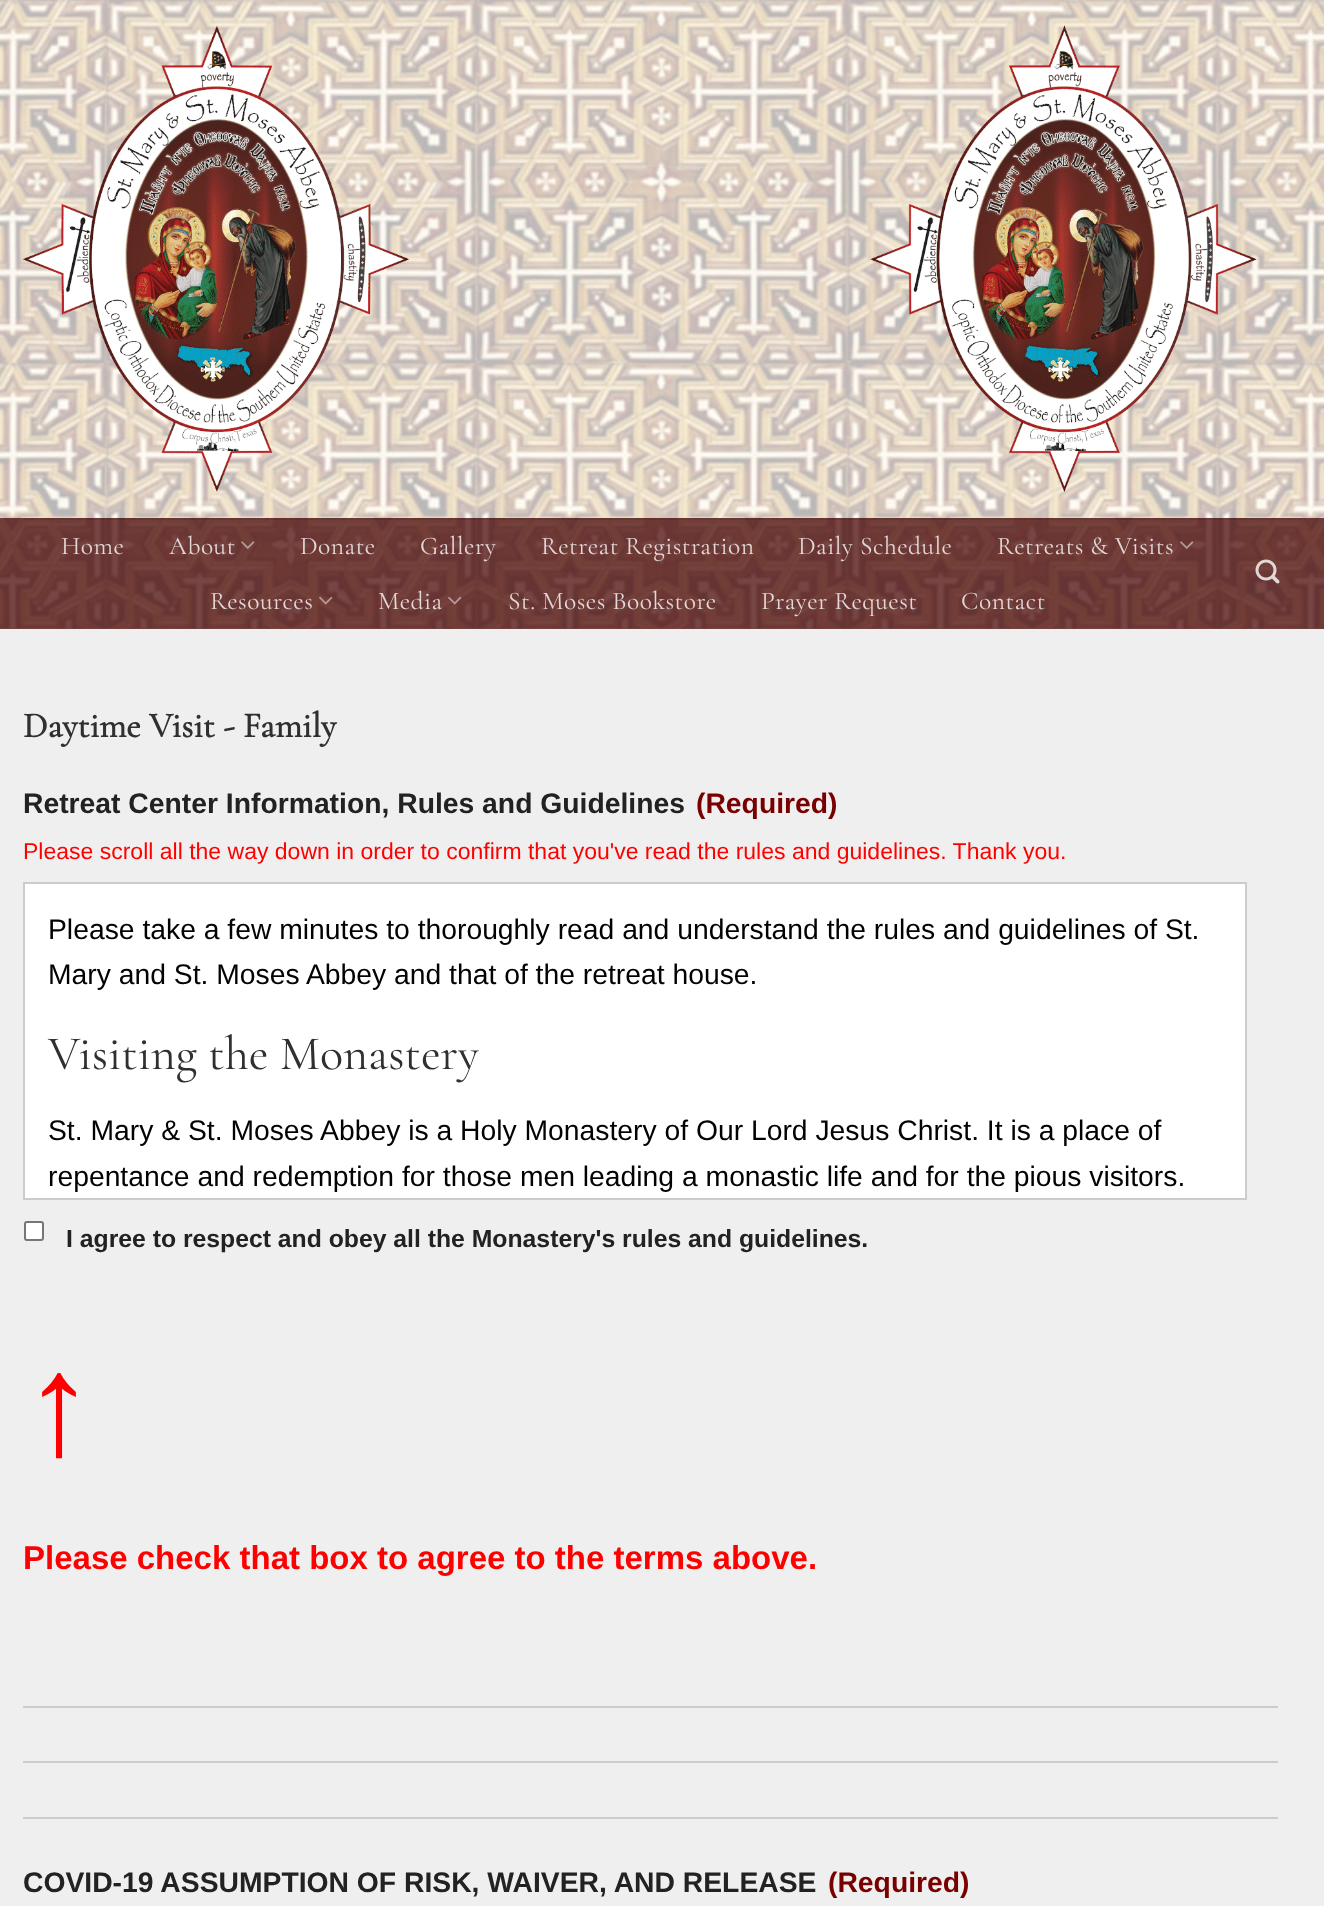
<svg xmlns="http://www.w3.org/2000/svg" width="1324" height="1906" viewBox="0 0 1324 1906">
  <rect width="100%" height="100%" fill="rgb(239,239,239)"/>
  <rect x="0" y="628" width="1324" height="1" fill="rgb(251,251,251)"/>
  <image x="0" y="0" width="1324" height="629" href="pic1.png"/>
  <image x="22" y="25" width="388" height="467" href="pic2.png"/>
  <image x="870" y="25" width="387" height="467" href="pic3.png"/>
  <rect x="0" y="518" width="1324" height="111" fill="rgba(66,0,0,0.72)"/>
  <rect x="23" y="518" width="1279" height="2" fill="rgba(2,2,2,0.1)"/>
  <g font-family="Cormorant Garamond" font-size="25.5" letter-spacing="0.5" fill="rgb(226,216,215)">
    <text x="61" y="554">Home</text>
    <text x="169" y="554">About</text>
  </g>
  <image x="241" y="541" width="14" height="8" href="pic4.png"/>
  <g font-family="Cormorant Garamond" font-size="25.5" letter-spacing="0.5" fill="rgb(226,216,215)">
    <text x="300" y="554">Donate</text>
    <text x="420" y="554">Gallery</text>
    <text x="541" y="554">Retreat Registration</text>
    <text x="798" y="554">Daily Schedule</text>
    <text x="997" y="554">Retreats &amp; Visits</text>
  </g>
  <image x="1180" y="541" width="14" height="8" href="pic5.png"/>
  <text x="210" y="609" font-family="Cormorant Garamond" font-size="25.5" letter-spacing="0.5" fill="rgb(226,216,215)">Resources</text>
  <image x="319" y="596" width="14" height="9" href="pic6.png"/>
  <text x="378" y="609" font-family="Cormorant Garamond" font-size="25.5" letter-spacing="0.5" fill="rgb(226,216,215)">Media</text>
  <image x="448" y="596" width="14" height="9" href="pic7.png"/>
  <g font-family="Cormorant Garamond" font-size="25.5" letter-spacing="0.5" fill="rgb(226,216,215)">
    <text x="508" y="609">St. Moses Bookstore</text>
    <text x="761" y="609">Prayer Request</text>
    <text x="961" y="609">Contact</text>
  </g>
  <image x="1255" y="559" width="25" height="25" href="pic8.png"/>
  <text x="23" y="737" font-family="Cormorant Garamond" font-size="35.5" font-weight="bold" fill="rgb(48,48,48)">Daytime Visit - Family</text>
  <text x="23" y="813" font-family="Liberation Sans" font-size="28.3" font-weight="bold" fill="rgb(34,34,34)">Retreat Center Information, Rules and Guidelines</text>
  <text x="696" y="813" font-family="Liberation Sans" font-size="28.3" font-weight="bold" fill="rgb(121,0,0)">(Required)</text>
  <text x="23" y="859" font-family="Liberation Sans" font-size="23" fill="rgb(255,0,0)">Please scroll all the way down in order to confirm that you've read the rules and guidelines. Thank you.</text>
  <rect x="24" y="883" width="1222" height="316" fill="rgb(255,255,255)" stroke="rgb(204,204,204)" stroke-width="2"/>
  <g font-family="Liberation Sans" font-size="28.3" fill="rgb(2,2,2)">
    <text>
      <tspan x="48" y="939">Please take a few minutes to thoroughly read and understand the rules and guidelines of St.</tspan>
      <tspan x="48" y="984">Mary and St. Moses Abbey and that of the retreat house.</tspan>
    </text>
  </g>
  <text x="48" y="1069" font-family="Cormorant Garamond" font-size="48.25" fill="rgb(48,48,48)">Visiting the Monastery</text>
  <g font-family="Liberation Sans" font-size="28.3" fill="rgb(2,2,2)">
    <text>
      <tspan x="48" y="1140">St. Mary &amp; St. Moses Abbey is a Holy Monastery of Our Lord Jesus Christ. It is a place of</tspan>
      <tspan x="48" y="1186">repentance and redemption for those men leading a monastic life and for the pious visitors.</tspan>
    </text>
  </g>
  <rect x="25" y="1222" width="18" height="18" rx="2" fill="rgb(255,255,255)" stroke="rgb(118,118,118)" stroke-width="2"/>
  <text x="66" y="1247" font-family="Liberation Sans" font-size="24.75" font-weight="bold" fill="rgb(34,34,34)">I agree to respect and obey all the Monastery's rules and guidelines.</text>
  <rect x="23" y="1706" width="1255" height="2" fill="rgb(204,204,204)"/>
  <text x="23" y="1454" font-family="Liberation Sans" font-size="144" font-weight="bold" fill="rgb(255,0,0)">↑</text>
  <text x="23" y="1569" font-family="Liberation Sans" font-size="33" font-weight="bold" fill="rgb(255,0,0)">Please check that box to agree to the terms above.</text>
  <rect x="23" y="1761" width="1255" height="2" fill="rgb(204,204,204)"/>
  <rect x="23" y="1817" width="1255" height="2" fill="rgb(204,204,204)"/>
  <text x="23" y="1892" font-family="Liberation Sans" font-size="28.3" font-weight="bold" fill="rgb(34,34,34)">COVID-19 ASSUMPTION OF RISK, WAIVER, AND RELEASE</text>
  <text x="828" y="1892" font-family="Liberation Sans" font-size="28.3" font-weight="bold" fill="rgb(121,0,0)">(Required)</text>
</svg>
